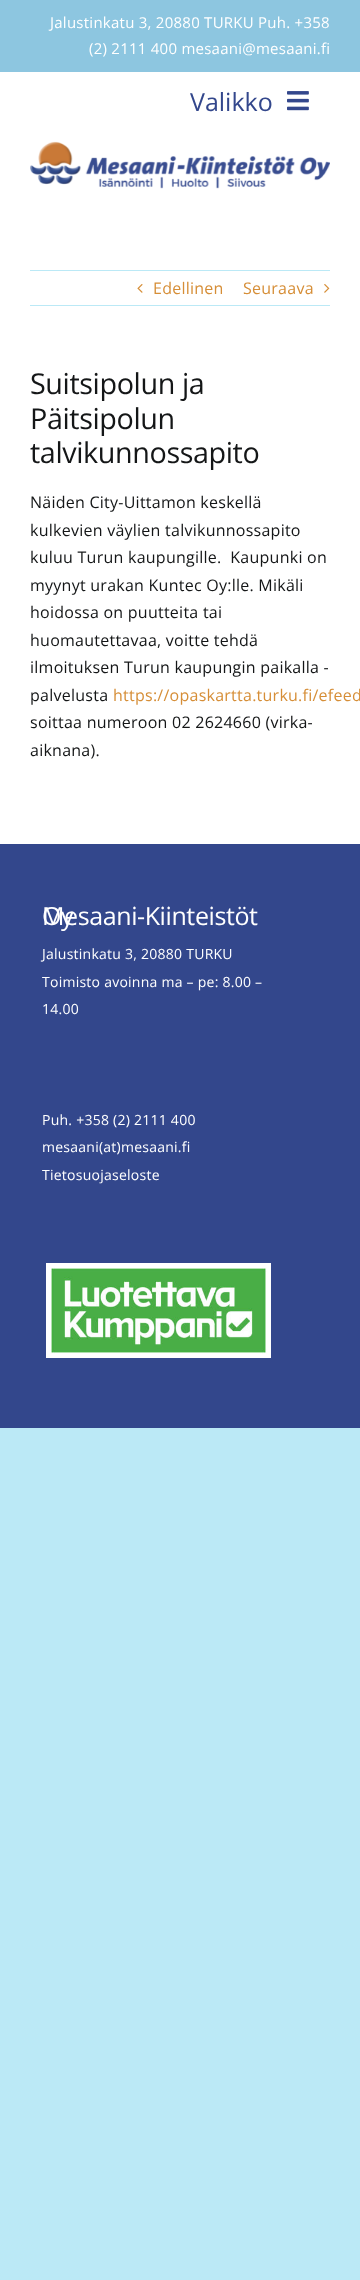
<svg xmlns="http://www.w3.org/2000/svg" width="360" height="2280" viewBox="0 0 360 2280">
  <rect width="100%" height="100%" fill="rgb(187,233,246)"/>
  <rect x="0" y="72" width="360" height="772" fill="rgb(255,255,255)"/>
  <rect x="0" y="0" width="360" height="72" fill="rgb(141,198,224)"/>
  <g font-family="Open Sans" font-size="15" letter-spacing="0.25" fill="rgb(255,255,255)">
    <text x="50" y="28">Jalustinkatu 3, 20880 TURKU Puh. +358</text>
    <text x="89" y="54">(2) 2111 400 mesaani@mesaani.fi</text>
  </g>
  <text x="190" y="111" font-family="Open Sans" font-size="25" fill="rgb(51,71,140)">Valikko</text>
  <image x="287" y="91" width="22" height="20" href="pic1.png"/>
  <image x="30" y="141" width="300" height="48" href="pic2.png"/>
  <rect x="30" y="270" width="300" height="1" fill="rgb(187,233,246)"/>
  <rect x="30" y="305" width="300" height="1" fill="rgb(187,233,246)"/>
  <image x="137" y="284" width="6" height="9" href="pic3.png"/>
  <g font-family="Open Sans" font-size="16" letter-spacing="0.25" fill="rgb(214,142,55)">
    <text x="153" y="294">Edellinen</text>
    <text x="243" y="294">Seuraava</text>
  </g>
  <image x="324" y="284" width="6" height="9" href="pic4.png"/>
  <g font-family="Open Sans" font-size="28.75" letter-spacing="-0.4" fill="rgb(20,22,23)">
    <text>
      <tspan x="30" y="394">Suitsipolun ja</tspan>
      <tspan x="30" y="429">Päitsipolun</tspan>
      <tspan x="30" y="463">talvikunnossapito</tspan>
    </text>
  </g>
  <g font-family="Open Sans" font-size="16" letter-spacing="0.25" fill="rgb(20,22,23)">
    <text xml:space="preserve"><tspan x="30" y="508">Näiden City-Uittamon keskellä</tspan><tspan x="30" y="536">kulkevien väylien talvikunnossapito</tspan><tspan x="30" y="563">kuluu Turun kaupungille.  Kaupunki on</tspan><tspan x="30" y="591">myynyt urakan Kuntec Oy:lle. Mikäli</tspan><tspan x="30" y="618">hoidossa on puutteita tai</tspan><tspan x="30" y="646">huomautettavaa, voitte tehdä</tspan><tspan x="30" y="673">ilmoituksen Turun kaupungin paikalla -</tspan><tspan x="30" y="701">palvelusta</tspan></text>
  </g>
  <text x="113" y="701" font-family="Open Sans" font-size="16" letter-spacing="0.25" fill="rgb(214,142,55)">https://opaskartta.turku.fi/efeed</text>
  <g font-family="Open Sans" font-size="16" letter-spacing="0.25" fill="rgb(20,22,23)">
    <text>
      <tspan x="30" y="728">soittaa numeroon 02 2624660 (virka-</tspan>
      <tspan x="30" y="756">aiknana).</tspan>
    </text>
  </g>
  <rect x="0" y="844" width="360" height="584" fill="rgb(51,71,140)"/>
  <g font-family="Open Sans" font-size="25" letter-spacing="-0.4" fill="rgb(255,255,255)">
    <text x="42" y="925">Mesaani-Kiinteistöt</text>
    <text x="42" y="925">Oy</text>
  </g>
  <g font-family="Open Sans" font-size="14" letter-spacing="0.25" fill="rgb(255,255,255)">
    <text x="42" y="959">Jalustinkatu 3, 20880 TURKU</text>
    <text>
      <tspan x="42" y="987">Toimisto avoinna ma – pe: 8.00 –</tspan>
      <tspan x="42" y="1014">14.00</tspan>
    </text>
    <text>
      <tspan x="42" y="1125">Puh. +358 (2) 2111 400</tspan>
      <tspan x="42" y="1152">mesaani(at)mesaani.fi</tspan>
    </text>
    <text x="42" y="1180">Tietosuojaseloste</text>
  </g>
  <image x="46" y="1263" width="225" height="95" href="pic5.png"/>
</svg>
